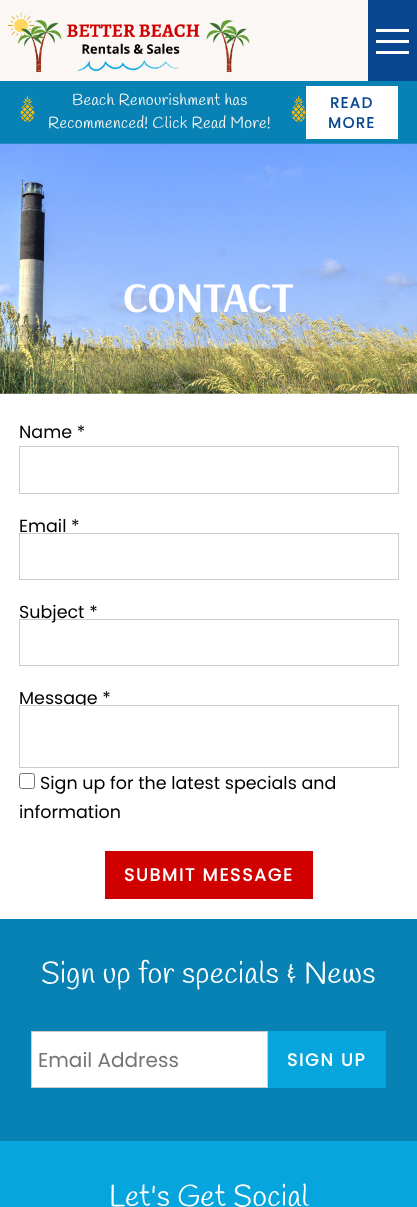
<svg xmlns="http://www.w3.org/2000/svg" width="417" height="1207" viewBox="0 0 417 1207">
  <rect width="100%" height="100%" fill="rgb(255,255,255)"/>
  <rect x="0" y="0" width="368" height="81" fill="rgb(250,247,244)"/>
  <image x="7" y="12" width="243" height="61" href="pic1.png"/>
  <rect x="368" y="0" width="49" height="81" fill="rgb(8,71,144)"/>
  <rect x="376" y="40" width="33" height="3" fill="rgb(255,255,255)"/>
  <rect x="376" y="29" width="33" height="3" fill="rgb(255,255,255)"/>
  <rect x="376" y="51" width="33" height="3" fill="rgb(255,255,255)"/>
  <rect x="0" y="81" width="417" height="63" fill="rgb(8,129,180)"/>
  <image x="20" y="95" width="15" height="27" href="pic2.png"/>
  <text x="72" y="105" font-family="Handlee" font-size="16" letter-spacing="0.35" fill="rgb(250,247,244)">Beach Renourishment has</text>
  <image x="291" y="95" width="15" height="27" href="pic3.png"/>
  <text x="48" y="128" font-family="Handlee" font-size="16" letter-spacing="0.35" fill="rgb(250,247,244)">Recommenced! Click Read More!</text>
  <rect x="306" y="86" width="92" height="53" fill="rgb(255,255,255)"/>
  <g font-family="Poppins" font-size="15" font-weight="bold" letter-spacing="1.5" fill="rgb(8,71,144)">
    <text x="330" y="108">READ</text>
    <text x="328" y="128">MORE</text>
  </g>
  <image x="0" y="143" width="417" height="251" href="pic4.png"/>
  <text x="123" y="312" font-family="Arsenal" font-size="42.5" font-weight="bold" fill="rgb(255,255,255)">CONTACT</text>
  <text x="19" y="438" font-family="Poppins" font-size="17.5" fill="rgb(0,0,0)">Name *</text>
  <rect x="19.5" y="446.5" width="379" height="47" fill="none" stroke="rgb(204,204,204)"/>
  <text x="19" y="532" font-family="Poppins" font-size="17.5" fill="rgb(0,0,0)">Email *</text>
  <rect x="19.5" y="533.5" width="379" height="46" fill="none" stroke="rgb(204,204,204)"/>
  <rect x="19.5" y="619.5" width="379" height="46" fill="none" stroke="rgb(204,204,204)"/>
  <g font-family="Poppins" font-size="17.5" fill="rgb(0,0,0)">
    <text x="19" y="618">Subject *</text>
    <text x="19" y="704">Message *</text>
  </g>
  <rect x="76" y="706" width="9" height="3" fill="rgb(255,255,255)"/>
  <rect x="19.5" y="705.5" width="379" height="62" fill="none" stroke="rgb(204,204,204)"/>
  <rect x="19.5" y="773.5" width="15" height="15" rx="2" fill="none" stroke="rgb(118,118,118)"/>
  <g font-family="Poppins" font-size="17.5" fill="rgb(0,0,0)">
    <text x="40" y="789">Sign up for the latest specials and</text>
    <text x="19" y="818">information</text>
  </g>
  <rect x="105" y="851" width="208" height="48" fill="rgb(208,0,0)"/>
  <text x="124" y="881" font-family="Poppins" font-size="17.5" font-weight="bold" letter-spacing="1.75" fill="rgb(255,255,255)">SUBMIT MESSAGE</text>
  <rect x="0" y="919" width="417" height="222" fill="rgb(8,129,180)"/>
  <text x="41" y="983" font-family="Handlee" font-size="30" letter-spacing="0.35" fill="rgb(255,255,255)">Sign up for specials &amp; News</text>
  <rect x="31.5" y="1031.5" width="236" height="56" fill="rgb(255,255,255)" stroke="rgb(204,204,204)"/>
  <text x="38" y="1067" font-family="Poppins" font-size="20" fill="rgb(117,117,117)">Email Address</text>
  <rect x="268" y="1031" width="118" height="57" fill="rgb(6,165,221)"/>
  <text x="287" y="1066" font-family="Poppins" font-size="17.5" font-weight="bold" letter-spacing="1.75" fill="rgb(255,255,255)">SIGN UP</text>
  <rect x="0" y="1141" width="417" height="66" fill="rgb(6,165,221)"/>
  <text x="109" y="1206" font-family="Handlee" font-size="30" letter-spacing="0.35" fill="rgb(255,255,255)">Let's Get Social</text>
</svg>
